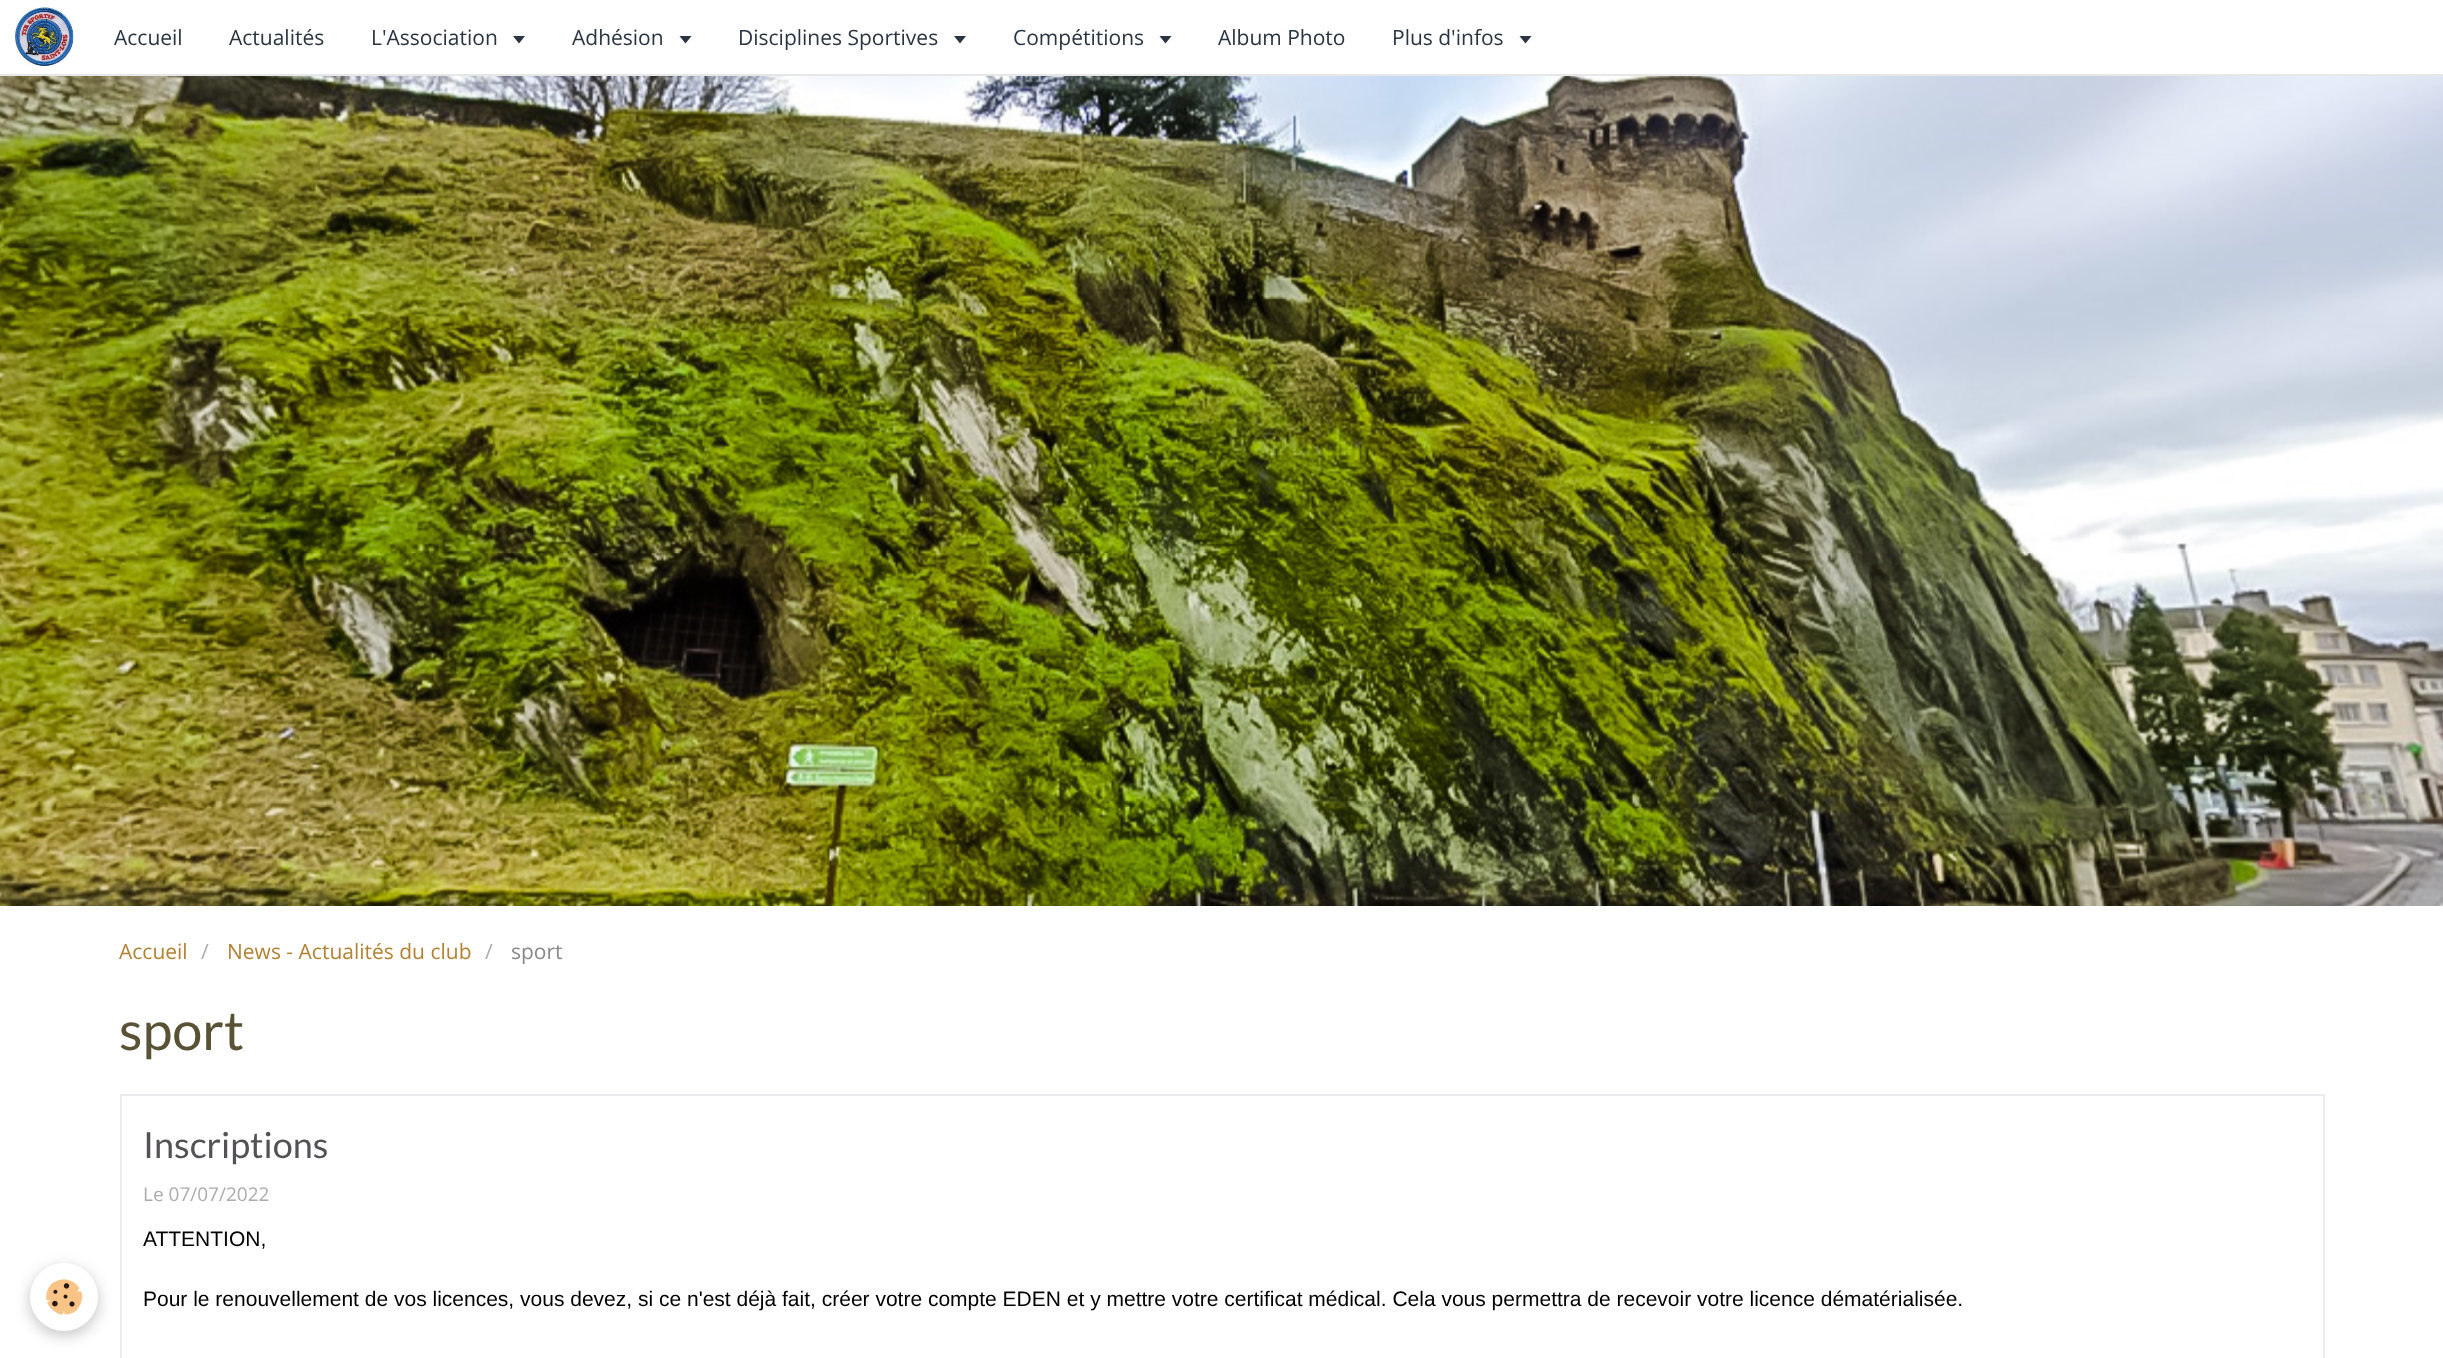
<svg xmlns="http://www.w3.org/2000/svg" width="2443" height="1358" viewBox="0 0 2443 1358">
  <rect width="100%" height="100%" fill="rgb(255,255,255)"/>
  <rect x="0" y="74" width="2443" height="2" fill="rgb(231,231,231)"/>
  <image x="15" y="7" width="59" height="59" href="pic1.png"/>
  <g font-family="Open Sans" font-size="21" fill="rgb(43,53,65)">
    <text x="114" y="45">Accueil</text>
    <text x="229" y="45">Actualités</text>
    <text x="371" y="45">L'Association</text>
  </g>
  <path d="M513 36H525L519 43.5Z" fill="rgb(43,53,65)"/>
  <text x="572" y="45" font-family="Open Sans" font-size="21" fill="rgb(43,53,65)">Adhésion</text>
  <path d="M679.5 36H691.5L685.5 43.5Z" fill="rgb(43,53,65)"/>
  <text x="738" y="45" font-family="Open Sans" font-size="21" fill="rgb(43,53,65)">Disciplines Sportives</text>
  <path d="M954 36H966L960 43.5Z" fill="rgb(43,53,65)"/>
  <text x="1013" y="45" font-family="Open Sans" font-size="21" fill="rgb(43,53,65)">Compétitions</text>
  <path d="M1159.5 36H1171.5L1165.5 43.5Z" fill="rgb(43,53,65)"/>
  <g font-family="Open Sans" font-size="21" fill="rgb(43,53,65)">
    <text x="1218" y="45">Album Photo</text>
    <text x="1392" y="45">Plus d'infos</text>
  </g>
  <path d="M1519.5 36H1531.5L1525.5 43.5Z" fill="rgb(43,53,65)"/>
  <image x="0" y="76" width="2443" height="830" href="pic2.png"/>
  <rect x="121" y="1095" width="2203" height="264" fill="none" stroke="rgb(233,235,240)" stroke-width="2"/>
  <rect x="30" y="1268" width="68" height="67" rx="33.5" fill="rgba(0,0,0,0.24)" filter="blur(7.5px)"/>
  <circle cx="64" cy="1297" r="34" fill="rgb(255,255,255)"/>
  <image x="46" y="1279" width="37" height="36" href="pic3.png"/>
  <text x="119" y="959" font-family="Open Sans" font-size="21" fill="rgb(178,130,51)">Accueil</text>
  <text x="201" y="959" font-family="Open Sans" font-size="21" fill="rgb(172,172,172)">/</text>
  <text x="227" y="959" font-family="Open Sans" font-size="21" fill="rgb(178,130,51)">News - Actualités du club</text>
  <text x="485" y="959" font-family="Open Sans" font-size="21" fill="rgb(172,172,172)">/</text>
  <text x="511" y="959" font-family="Open Sans" font-size="21" fill="rgb(136,136,136)">sport</text>
  <text x="119" y="1050" font-family="Lato" font-size="54" fill="rgb(89,82,53)">sport</text>
  <text x="143" y="1158" font-family="Lato" font-size="36" fill="rgb(84,82,87)">Inscriptions</text>
  <text x="143" y="1201" font-family="Open Sans" font-size="19" fill="rgb(172,172,172)">Le 07/07/2022</text>
  <g font-family="Liberation Sans" font-size="21" fill="rgb(0,0,0)">
    <text x="143" y="1246">ATTENTION,</text>
    <text x="143" y="1306">Pour le renouvellement de vos licences, vous devez, si ce n'est déjà fait, créer votre compte EDEN et y mettre votre certificat médical. Cela vous permettra de recevoir votre licence dématérialisée.</text>
  </g>
</svg>
